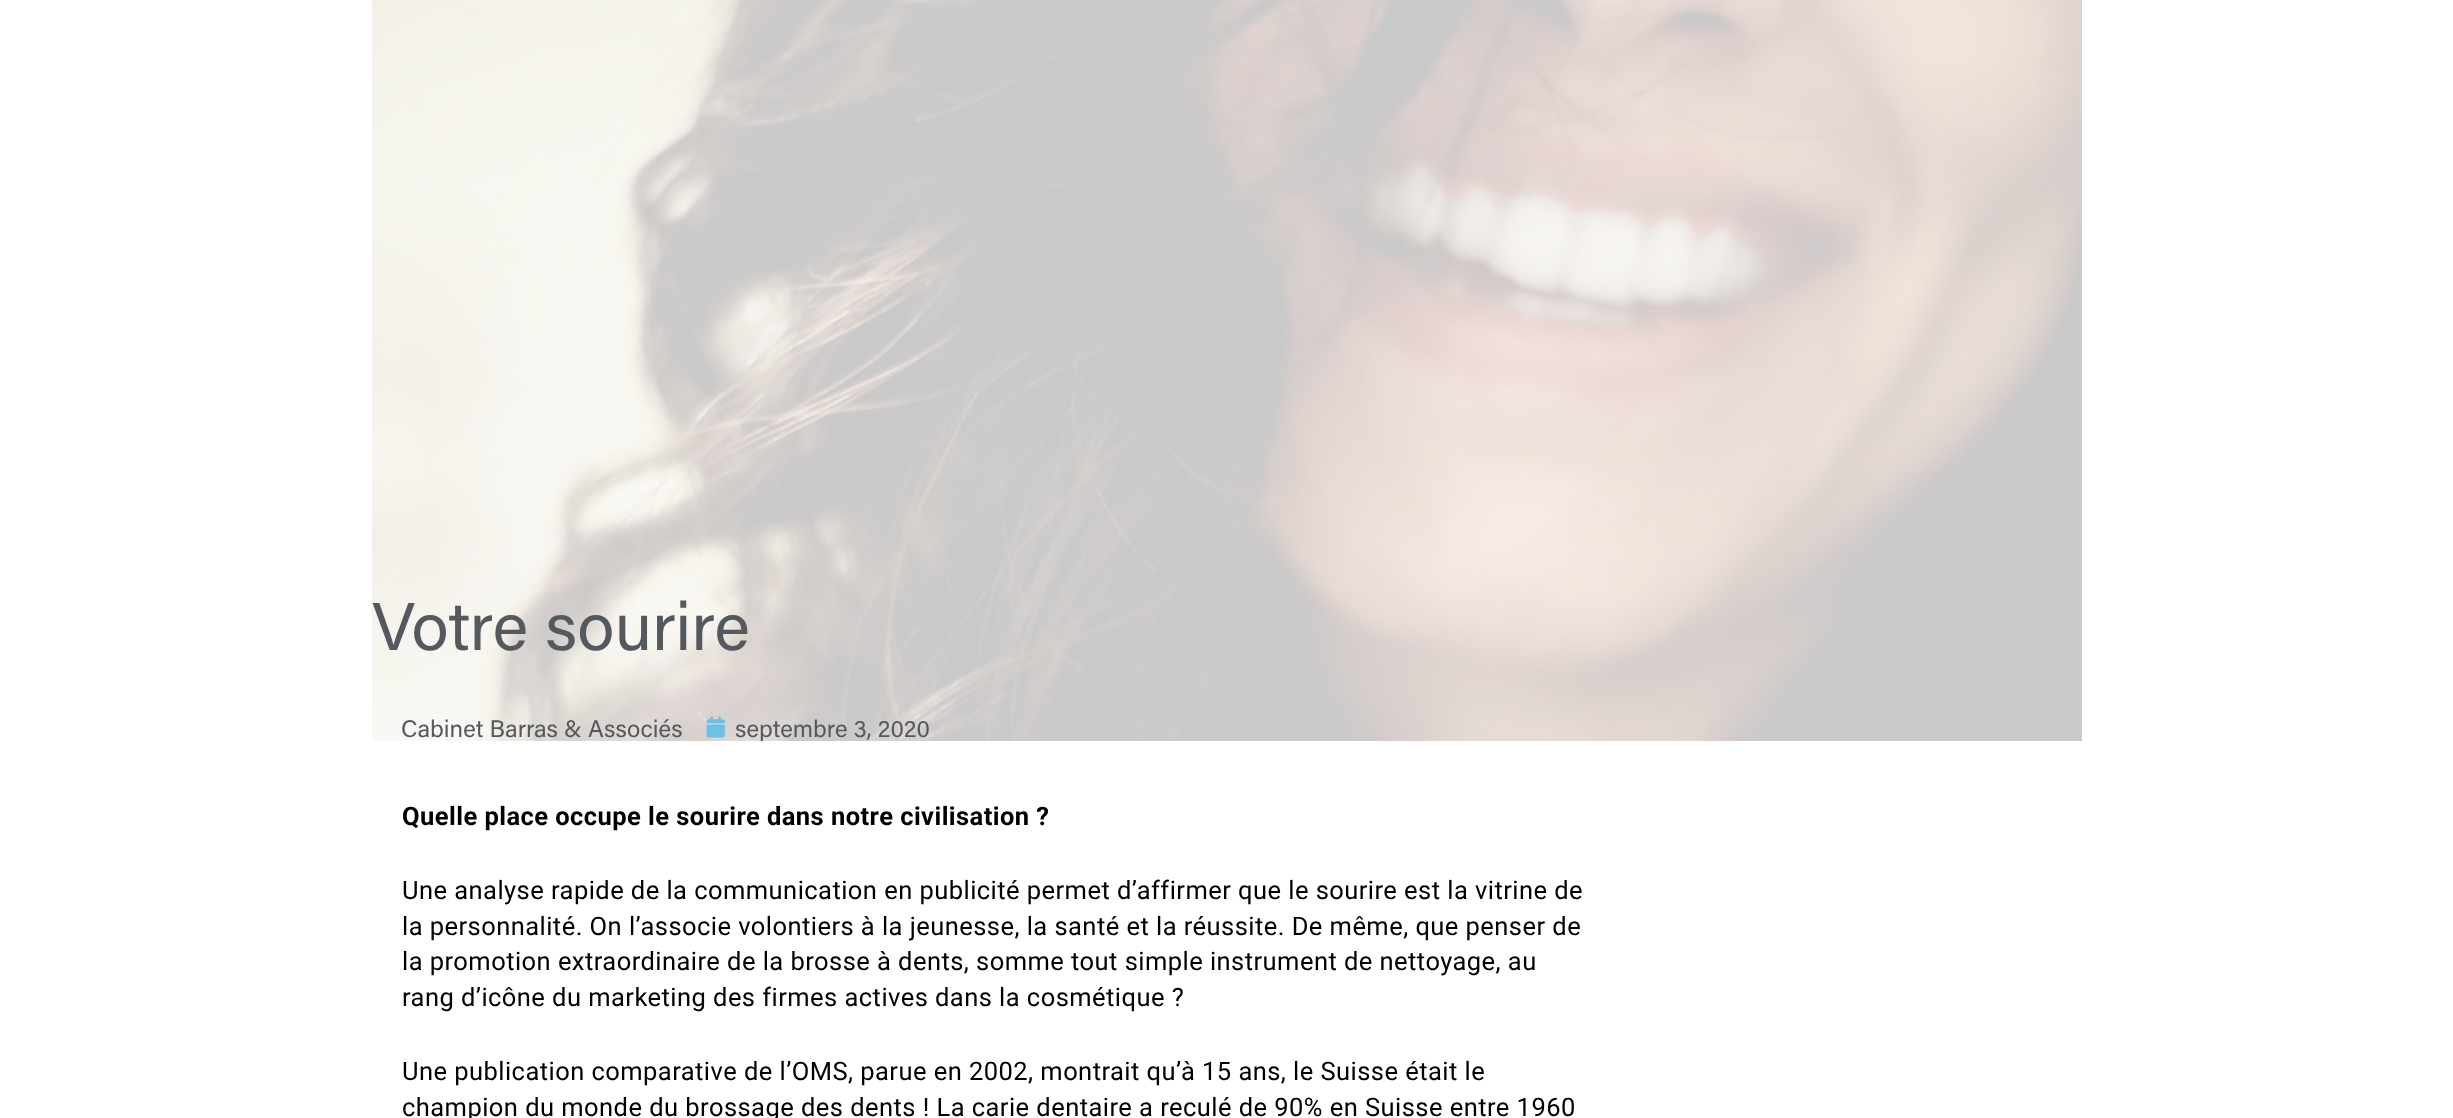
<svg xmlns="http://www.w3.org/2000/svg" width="2453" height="1118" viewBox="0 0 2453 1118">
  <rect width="100%" height="100%" fill="rgb(255,255,255)"/>
  <image x="372" y="0" width="1710" height="741" href="pic1.png"/>
  <text x="372" y="650" font-family="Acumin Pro" font-size="67.5" fill="rgb(84,89,95)">Votre sourire</text>
  <text x="401" y="737" font-family="Acumin Pro" font-size="24" fill="rgb(84,89,95)">Cabinet Barras &amp; Associés</text>
  <image x="706" y="716" width="19" height="22" href="pic2.png"/>
  <text x="735" y="737" font-family="Acumin Pro" font-size="24" fill="rgb(84,89,95)">septembre 3, 2020</text>
  <rect x="760" y="741" width="3" height="1" fill="rgb(255,255,255)"/>
  <text x="402" y="825" font-family="Roboto" font-size="25.5" font-weight="bold" letter-spacing="0.45" fill="rgb(0,0,0)">Quelle place occupe le sourire dans notre civilisation ?</text>
  <g font-family="Roboto" font-size="25.5" letter-spacing="0.45" fill="rgb(0,0,0)">
    <text>
      <tspan x="402" y="899">Une analyse rapide de la communication en publicité permet d’affirmer que le sourire est la vitrine de</tspan>
      <tspan x="402" y="935">la personnalité. On l’associe volontiers à la jeunesse, la santé et la réussite. De même, que penser de</tspan>
      <tspan x="402" y="970">la promotion extraordinaire de la brosse à dents, somme tout simple instrument de nettoyage, au</tspan>
      <tspan x="402" y="1006">rang d’icône du marketing des firmes actives dans la cosmétique ?</tspan>
    </text>
    <text>
      <tspan x="402" y="1080">Une publication comparative de l’OMS, parue en 2002, montrait qu’à 15 ans, le Suisse était le</tspan>
      <tspan x="402" y="1116">champion du monde du brossage des dents ! La carie dentaire a reculé de 90% en Suisse entre 1960</tspan>
    </text>
  </g>
</svg>
